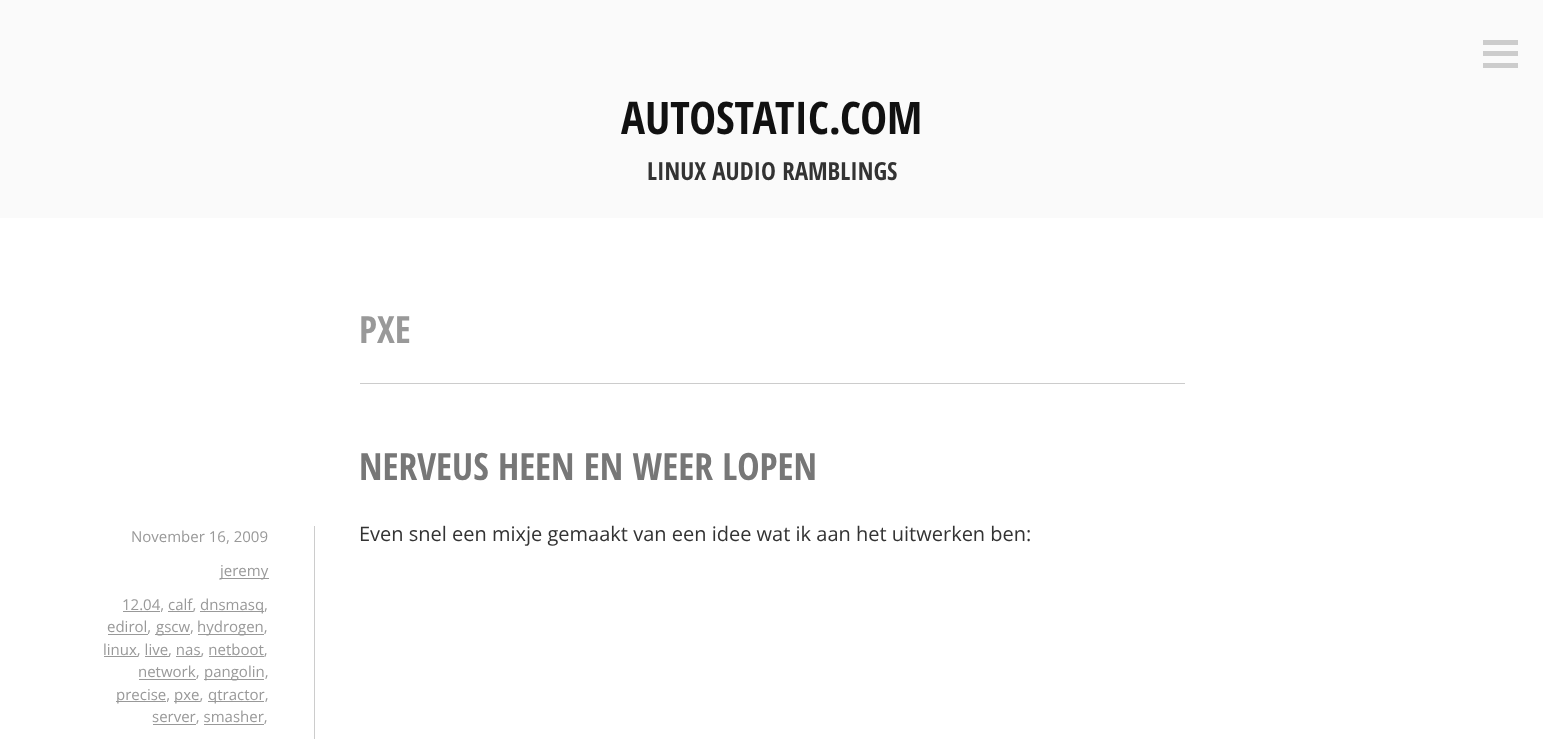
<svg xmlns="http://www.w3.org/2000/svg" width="1543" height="739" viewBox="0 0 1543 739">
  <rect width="100%" height="100%" fill="rgb(255,255,255)"/>
  <rect x="0" y="0" width="1543" height="218" fill="rgb(250,250,250)"/>
  <rect x="1483" y="40" width="35" height="5" fill="rgb(204,204,204)"/>
  <rect x="1483" y="51" width="35" height="5" fill="rgb(204,204,204)"/>
  <rect x="1483" y="63" width="35" height="5" fill="rgb(204,204,204)"/>
  <text x="621" y="134" font-family="Open Sans Condensed" font-size="45" font-weight="bold" fill="rgb(17,17,17)">AUTOSTATIC.COM</text>
  <text x="647" y="180" font-family="Open Sans Condensed" font-size="25" font-weight="bold" fill="rgb(51,51,51)">LINUX AUDIO RAMBLINGS</text>
  <rect x="360" y="383" width="825" height="1" fill="rgb(204,204,204)"/>
  <text x="359" y="343" font-family="Open Sans Condensed" font-size="37.5" font-weight="bold" fill="rgb(153,153,153)">PXE</text>
  <text x="359" y="480" font-family="Open Sans Condensed" font-size="37.5" font-weight="bold" fill="rgb(119,119,119)">NERVEUS HEEN EN WEER LOPEN</text>
  <rect x="314" y="526" width="1" height="213" fill="rgb(204,204,204)"/>
  <text x="131" y="542" font-family="Open Sans" font-size="15" fill="rgb(153,153,153)">November 16, 2009</text>
  <rect x="220" y="578" width="49" height="1" fill="rgb(153,153,153)"/>
  <text x="220" y="576" font-family="Open Sans" font-size="15" fill="rgb(153,153,153)">jeremy</text>
  <rect x="123" y="611" width="37" height="1" fill="rgb(153,153,153)"/>
  <text x="122" y="610" font-family="Open Sans" font-size="15" fill="rgb(153,153,153)">12.04, calf,</text>
  <rect x="200" y="611" width="64" height="1" fill="rgb(153,153,153)"/>
  <text x="200" y="610" font-family="Open Sans" font-size="15" fill="rgb(153,153,153)">dnsmasq,</text>
  <rect x="168" y="611" width="25" height="1" fill="rgb(153,153,153)"/>
  <text x="107" y="632" font-family="Open Sans" font-size="15" fill="rgb(153,153,153)">edirol,</text>
  <rect x="108" y="634" width="40" height="1" fill="rgb(153,153,153)"/>
  <rect x="155" y="634" width="35" height="1" fill="rgb(153,153,153)"/>
  <text x="156" y="632" font-family="Open Sans" font-size="15" fill="rgb(153,153,153)">gscw,</text>
  <rect x="198" y="634" width="66" height="1" fill="rgb(153,153,153)"/>
  <text x="197" y="632" font-family="Open Sans" font-size="15" fill="rgb(153,153,153)">hydrogen,</text>
  <rect x="104" y="656" width="34" height="1" fill="rgb(153,153,153)"/>
  <text x="103" y="655" font-family="Open Sans" font-size="15" fill="rgb(153,153,153)">linux, live, nas, netboot,</text>
  <rect x="145" y="656" width="24" height="1" fill="rgb(153,153,153)"/>
  <rect x="176" y="656" width="25" height="1" fill="rgb(153,153,153)"/>
  <rect x="209" y="656" width="55" height="1" fill="rgb(153,153,153)"/>
  <text x="138" y="677" font-family="Open Sans" font-size="15" fill="rgb(153,153,153)">network,</text>
  <rect x="139" y="679" width="57" height="1" fill="rgb(153,153,153)"/>
  <rect x="204" y="679" width="60" height="1" fill="rgb(153,153,153)"/>
  <text x="204" y="677" font-family="Open Sans" font-size="15" fill="rgb(153,153,153)">pangolin,</text>
  <rect x="116" y="701" width="50" height="1" fill="rgb(153,153,153)"/>
  <text x="116" y="700" font-family="Open Sans" font-size="15" fill="rgb(153,153,153)">precise,</text>
  <rect x="174" y="701" width="26" height="1" fill="rgb(153,153,153)"/>
  <text x="174" y="700" font-family="Open Sans" font-size="15" fill="rgb(153,153,153)">pxe,</text>
  <rect x="208" y="701" width="56" height="1" fill="rgb(153,153,153)"/>
  <g font-family="Open Sans" font-size="15" fill="rgb(153,153,153)">
    <text x="208" y="700">qtractor,</text>
    <text x="152" y="722">server, smasher,</text>
  </g>
  <rect x="153" y="724" width="43" height="1" fill="rgb(153,153,153)"/>
  <rect x="204" y="724" width="60" height="1" fill="rgb(153,153,153)"/>
  <text x="359" y="541" font-family="Open Sans" font-size="20" fill="rgb(51,51,51)">Even snel een mixje gemaakt van een idee wat ik aan het uitwerken ben:</text>
</svg>
